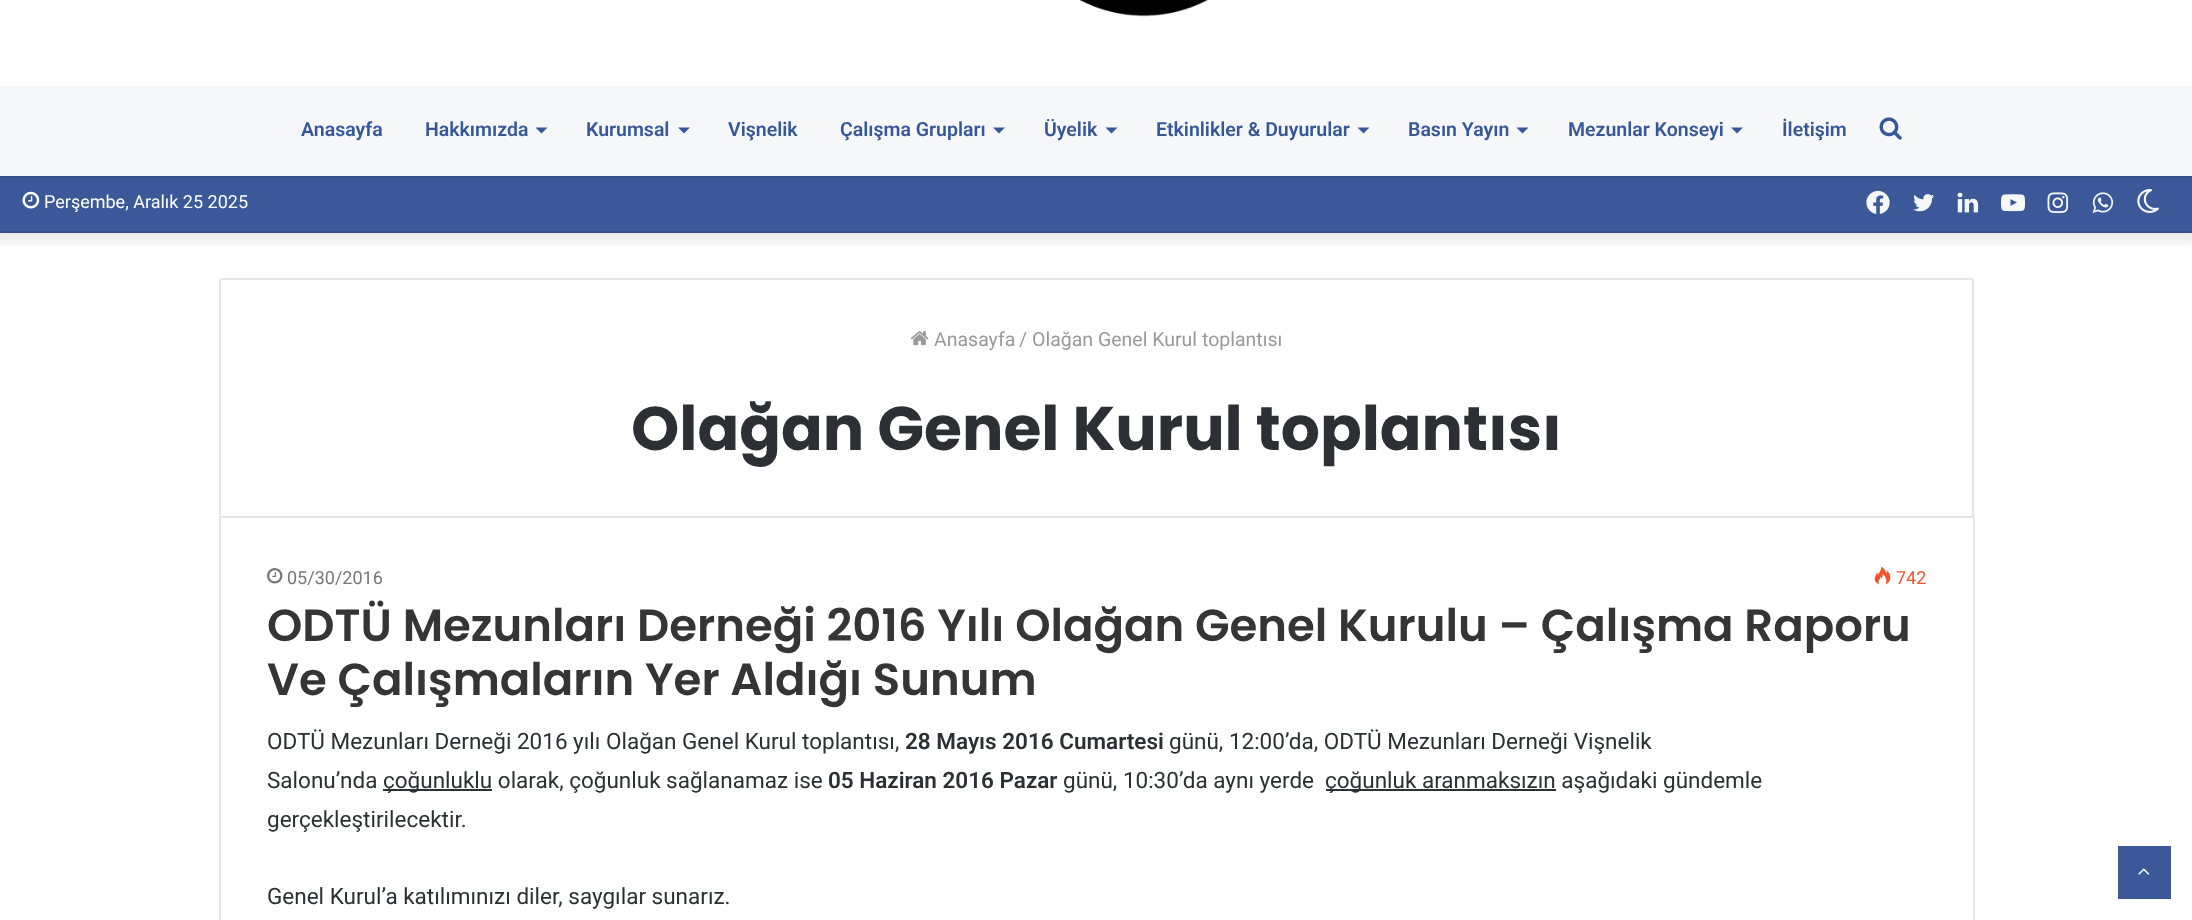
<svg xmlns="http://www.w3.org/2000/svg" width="2192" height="920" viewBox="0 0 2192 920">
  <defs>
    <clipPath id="clip1"><rect x="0" y="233" width="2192" height="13"/></clipPath>
  </defs>
  <rect width="100%" height="100%" fill="rgb(255,255,255)"/>
  <g clip-path="url(#clip1)">
    <rect x="-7" y="-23" width="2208" height="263" fill="rgba(0,0,0,0.1)" filter="blur(7.5px)"/>
  </g>
  <image x="1079" y="0" width="129" height="17" href="pic1.png"/>
  <rect x="0" y="86" width="2192" height="90" fill="rgb(246,247,249)"/>
  <g font-family="Roboto" font-size="19.5" font-weight="600" fill="rgb(54,88,153)">
    <text x="301" y="136">Anasayfa</text>
    <text x="425" y="136">Hakkımızda</text>
  </g>
  <path d="M535.5 127.5H547.5L541.5 133.5Z" fill="rgb(54,88,153)"/>
  <text x="586" y="136" font-family="Roboto" font-size="19.5" font-weight="600" fill="rgb(54,88,153)">Kurumsal</text>
  <path d="M678 127.5H690L684 133.5Z" fill="rgb(54,88,153)"/>
  <g font-family="Roboto" font-size="19.5" font-weight="600" fill="rgb(54,88,153)">
    <text x="728" y="136">Vişnelik</text>
    <text x="840" y="136">Çalışma Grupları</text>
  </g>
  <path d="M993 127.5H1005L999 133.5Z" fill="rgb(54,88,153)"/>
  <text x="1044" y="136" font-family="Roboto" font-size="19.5" font-weight="600" fill="rgb(54,88,153)">Üyelik</text>
  <path d="M1105.5 127.5H1117.5L1111.5 133.5Z" fill="rgb(54,88,153)"/>
  <text x="1156" y="136" font-family="Roboto" font-size="19.5" font-weight="600" fill="rgb(54,88,153)">Etkinlikler &amp; Duyurular</text>
  <path d="M1357.5 127.5H1369.5L1363.5 133.5Z" fill="rgb(54,88,153)"/>
  <text x="1408" y="136" font-family="Roboto" font-size="19.5" font-weight="600" fill="rgb(54,88,153)">Basın Yayın</text>
  <path d="M1516.5 127.5H1528.5L1522.5 133.5Z" fill="rgb(54,88,153)"/>
  <text x="1568" y="136" font-family="Roboto" font-size="19.5" font-weight="600" fill="rgb(54,88,153)">Mezunlar Konseyi</text>
  <path d="M1731 127.5H1743L1737 133.5Z" fill="rgb(54,88,153)"/>
  <text x="1782" y="136" font-family="Roboto" font-size="19.5" font-weight="600" fill="rgb(54,88,153)">İletişim</text>
  <image x="1879" y="117" width="23" height="23" href="pic2.png"/>
  <rect x="0" y="178" width="2192" height="53" fill="rgb(59,89,152)"/>
  <rect x="0" y="176" width="2192" height="2" fill="rgb(53,80,137)"/>
  <rect x="0" y="231" width="2192" height="2" fill="rgb(53,80,137)"/>
  <image x="22" y="191" width="18" height="18" href="pic3.png"/>
  <text x="44" y="208" font-family="Roboto" font-size="18" fill="rgb(255,255,255)">Perşembe, Aralık 25 2025</text>
  <image x="1866" y="190" width="24" height="24" href="pic4.png"/>
  <image x="1913" y="194" width="21" height="18" href="pic5.png"/>
  <image x="1957" y="192" width="22" height="21" href="pic6.png"/>
  <image x="2001" y="194" width="24" height="18" href="pic7.png"/>
  <image x="2047" y="192" width="22" height="21" href="pic8.png"/>
  <image x="2092" y="192" width="22" height="21" href="pic9.png"/>
  <image x="2137" y="189" width="22" height="24" href="pic10.png"/>
  <path d="M222 279H1971C1972 279 1973 280 1973 281V517H220V281C220 280 221 279 222 279Z" fill="none" stroke="rgb(230,230,230)" stroke-width="2"/>
  <image x="910" y="331" width="19" height="15" href="pic11.png"/>
  <g font-family="Roboto" font-size="19.5" fill="rgb(153,153,153)">
    <text x="934" y="346">Anasayfa</text>
    <text x="1019" y="346">/</text>
    <text x="1032" y="346">Olağan Genel Kurul toplantısı</text>
  </g>
  <text x="631" y="450" font-family="Poppins" font-size="61.5" font-weight="bold" fill="rgb(44,47,52)">Olağan Genel Kurul toplantısı</text>
  <rect x="1973" y="518" width="2" height="402" fill="rgb(230,230,230)"/>
  <rect x="219" y="518" width="2" height="402" fill="rgb(230,230,230)"/>
  <image x="267" y="568" width="16" height="16" href="pic12.png"/>
  <text x="287" y="584" font-family="Roboto" font-size="18" fill="rgb(119,119,119)">05/30/2016</text>
  <image x="1874" y="566" width="17" height="19" href="pic13.png"/>
  <text x="1896" y="584" font-family="Roboto" font-size="18" fill="rgb(243,82,44)">742</text>
  <g font-family="Poppins" font-size="45" font-weight="600" fill="rgb(53,53,53)">
    <text>
      <tspan x="267" y="641">ODTÜ Mezunları Derneği 2016 Yılı Olağan Genel Kurulu – Çalışma Raporu</tspan>
      <tspan x="267" y="695">Ve Çalışmaların Yer Aldığı Sunum</tspan>
    </text>
  </g>
  <text x="267" y="749" font-family="Roboto" font-size="22.5" fill="rgb(44,47,52)">ODTÜ Mezunları Derneği 2016 yılı Olağan Genel Kurul toplantısı,</text>
  <text x="905" y="749" font-family="Roboto" font-size="22.5" font-weight="600" fill="rgb(44,47,52)">28 Mayıs 2016 Cumartesi</text>
  <g font-family="Roboto" font-size="22.5" fill="rgb(44,47,52)">
    <text x="1169" y="749">günü, 12:00’da, ODTÜ Mezunları Derneği Vişnelik</text>
    <text x="267" y="788">Salonu’nda</text>
  </g>
  <rect x="383" y="789" width="109" height="2" fill="rgb(46,49,54)"/>
  <text x="383" y="788" font-family="Roboto" font-size="22.5" fill="rgb(44,47,52)">çoğunluklu olarak, çoğunluk sağlanamaz ise</text>
  <text x="828" y="788" font-family="Roboto" font-size="22.5" font-weight="600" fill="rgb(44,47,52)">05 Haziran 2016 Pazar</text>
  <text x="1063" y="788" font-family="Roboto" font-size="22.5" fill="rgb(44,47,52)">günü, 10:30’da aynı yerde</text>
  <rect x="1326" y="789" width="230" height="2" fill="rgb(46,49,54)"/>
  <g font-family="Roboto" font-size="22.5" fill="rgb(44,47,52)">
    <text x="1325" y="788">çoğunluk aranmaksızın aşağıdaki gündemle</text>
    <text x="267" y="827">gerçekleştirilecektir.</text>
    <text x="267" y="904">Genel Kurul’a katılımınızı diler, saygılar sunarız.</text>
  </g>
  <rect x="2118" y="846" width="53" height="53" fill="rgb(59,89,152)"/>
  <image x="2138" y="868" width="12" height="7" href="pic14.png"/>
</svg>
